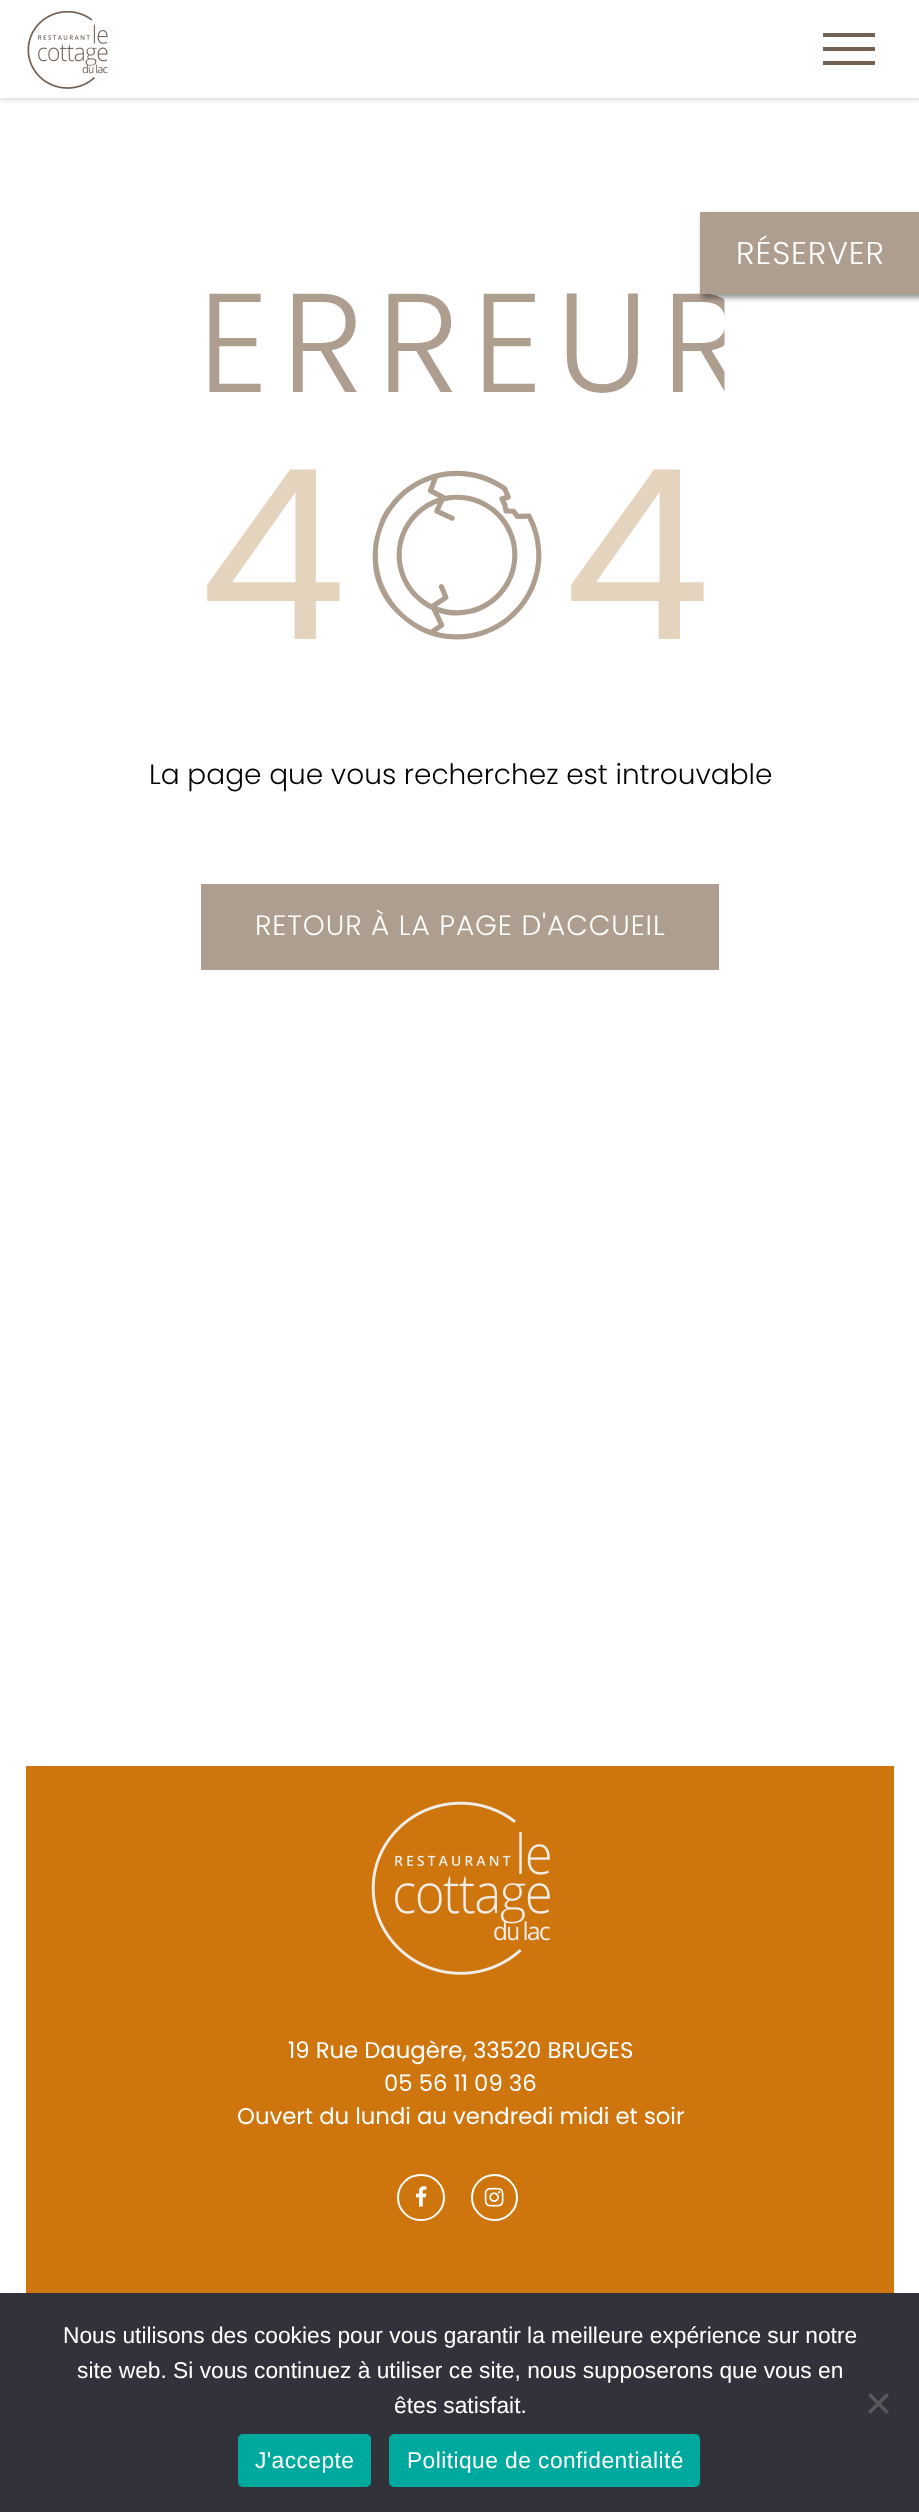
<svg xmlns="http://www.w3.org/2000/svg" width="919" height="2512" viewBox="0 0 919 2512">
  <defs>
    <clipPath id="clip1"><rect x="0" y="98" width="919" height="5"/></clipPath>
  </defs>
  <rect width="100%" height="100%" fill="rgb(255,255,255)"/>
  <g clip-path="url(#clip1)">
    <rect x="0" y="0" width="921" height="98" fill="rgba(0,0,0,0.24)" filter="blur(3.5px)"/>
  </g>
  <image x="27" y="11" width="81" height="78" href="pic1.png"/>
  <rect x="823" y="47" width="52" height="4" fill="rgb(114,98,86)"/>
  <rect x="823" y="33" width="52" height="4" fill="rgb(114,98,86)"/>
  <rect x="823" y="61" width="52" height="4" fill="rgb(114,98,86)"/>
  <image x="207" y="293" width="518" height="347" href="pic2.png"/>
  <rect x="702" y="215" width="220" height="83" fill="rgba(0,0,0,0.4)" filter="blur(2.5px)"/>
  <rect x="700" y="212" width="219" height="82" fill="rgb(174,158,143)"/>
  <text x="736" y="264" font-family="Poppins" font-size="31.5" font-weight="300" letter-spacing="0.9" fill="rgb(255,255,255)">RÉSERVER</text>
  <text x="149" y="784" font-family="Poppins" font-size="28" font-weight="300" fill="rgb(0,0,0)">La page que vous recherchez est introuvable</text>
  <rect x="201" y="884" width="518" height="86" fill="rgb(174,158,143)"/>
  <text x="255" y="935" font-family="Poppins" font-size="28" font-weight="300" letter-spacing="0.9" fill="rgb(255,255,255)">RETOUR À LA PAGE D'ACCUEIL</text>
  <rect x="26" y="1766" width="868" height="527" fill="rgb(206,117,13)"/>
  <image x="371" y="1801" width="179" height="174" href="pic3.png"/>
  <g font-family="Poppins" font-size="22.75" fill="rgb(255,255,255)">
    <text x="288" y="2058">19 Rue Daugère, 33520 BRUGES</text>
    <text x="384" y="2091">05 56 11 09 36</text>
    <text x="237" y="2124">Ouvert du lundi au vendredi midi et soir</text>
  </g>
  <rect x="398" y="2175" width="46" height="45" rx="22.5" fill="none" stroke="rgb(255,255,255)" stroke-width="2"/>
  <image x="415" y="2186" width="12" height="21" href="pic4.png"/>
  <circle cx="494.5" cy="2197.5" r="22.5" fill="none" stroke="rgb(255,255,255)" stroke-width="2"/>
  <image x="484" y="2187" width="20" height="20" href="pic5.png"/>
  <rect x="0" y="2293" width="919" height="219" fill="rgb(50,50,58)"/>
  <g font-family="Liberation Sans" font-size="22.75" fill="rgb(255,255,255)">
    <text x="63" y="2343">Nous utilisons des cookies pour vous garantir la meilleure expérience sur notre</text>
    <text x="77" y="2378">site web. Si vous continuez à utiliser ce site, nous supposerons que vous en</text>
    <text x="394" y="2413">êtes satisfait.</text>
  </g>
  <path d="M886.5 2393L889 2395.5L870.5 2414L868 2411.5Z" fill="rgb(89,89,93)"/>
  <path d="M868 2395.5L870.5 2393L889 2411.5L886.5 2414Z" fill="rgb(89,89,93)"/>
  <rect x="238" y="2434" width="133" height="53" rx="5" fill="rgb(0,169,157)"/>
  <text x="255" y="2468" font-family="Liberation Sans" font-size="22.75" letter-spacing="0.45" fill="rgb(255,255,255)">J'accepte</text>
  <rect x="389" y="2434" width="311" height="53" rx="5" fill="rgb(0,169,157)"/>
  <text x="407" y="2468" font-family="Liberation Sans" font-size="22.75" letter-spacing="0.45" fill="rgb(255,255,255)">Politique de confidentialité</text>
</svg>
